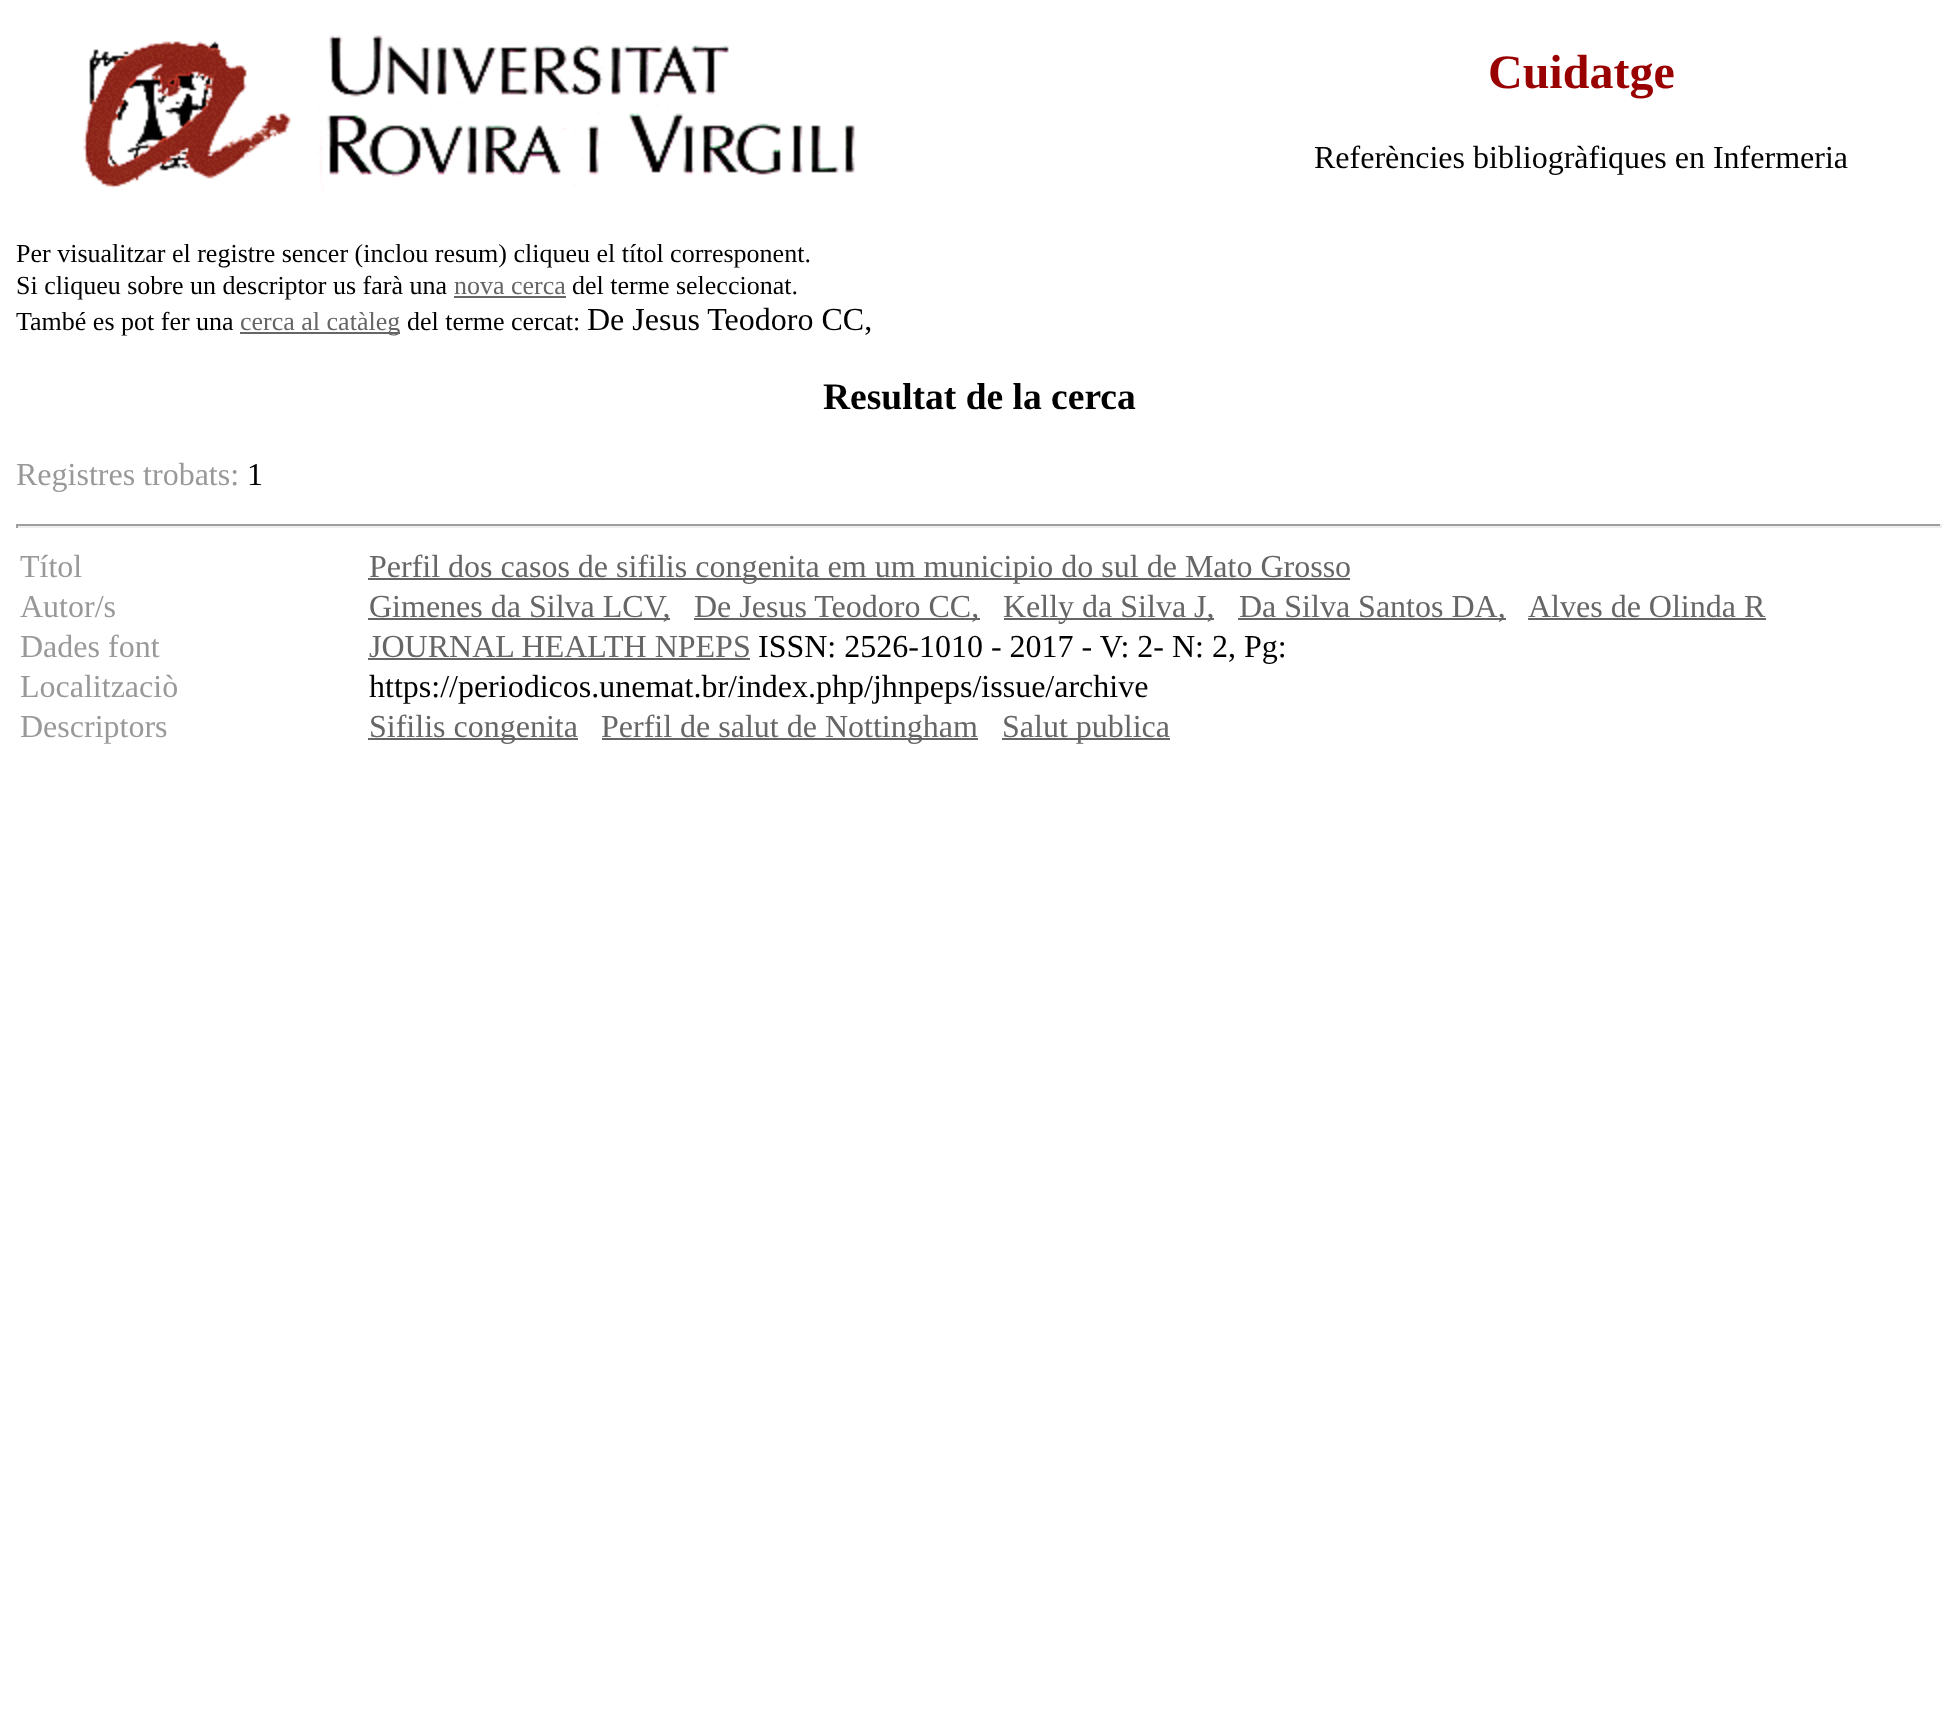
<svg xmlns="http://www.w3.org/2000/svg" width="1958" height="1717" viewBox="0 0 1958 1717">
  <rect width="100%" height="100%" fill="rgb(255,255,255)"/>
  <image x="83" y="35" width="772" height="157" href="pic1.png"/>
  <text x="1488" y="88" font-family="Liberation Serif" font-size="48" font-weight="bold" fill="rgb(153,0,0)">Cuidatge</text>
  <text x="1314" y="168" font-family="Liberation Serif" font-size="32" fill="rgb(0,0,0)">Referències bibliogràfiques en Infermeria</text>
  <g font-family="Liberation Serif" font-size="26" fill="rgb(0,0,0)">
    <text>
      <tspan x="16" y="262">Per visualitzar el registre sencer (inclou resum) cliqueu el títol corresponent.</tspan>
      <tspan x="16" y="294">Si cliqueu sobre un descriptor us farà una</tspan>
    </text>
  </g>
  <text x="454" y="294" font-family="Liberation Serif" font-size="26" fill="rgb(102,102,102)">nova cerca</text>
  <rect x="454" y="296" width="112" height="2" fill="rgb(102,102,102)"/>
  <g font-family="Liberation Serif" font-size="26" fill="rgb(0,0,0)">
    <text x="572" y="294">del terme seleccionat.</text>
    <text x="16" y="330">També es pot fer una</text>
  </g>
  <rect x="240" y="332" width="160" height="2" fill="rgb(102,102,102)"/>
  <text x="240" y="330" font-family="Liberation Serif" font-size="26" fill="rgb(102,102,102)">cerca al catàleg</text>
  <text x="407" y="330" font-family="Liberation Serif" font-size="26" fill="rgb(0,0,0)">del terme cercat:</text>
  <text x="587" y="330" font-family="Liberation Serif" font-size="32" fill="rgb(0,0,0)">De Jesus Teodoro CC,</text>
  <text x="823" y="409" font-family="Liberation Serif" font-size="37.5" font-weight="bold" fill="rgb(0,0,0)">Resultat de la cerca</text>
  <text x="16" y="485" font-family="Liberation Serif" font-size="32" fill="rgb(153,153,153)">Registres trobats:</text>
  <text x="247" y="485" font-family="Liberation Serif" font-size="32" fill="rgb(0,0,0)">1</text>
  <rect x="16" y="524" width="1926" height="2" fill="rgb(159,159,159)"/>
  <rect x="1940" y="524" width="2" height="4" fill="rgb(238,238,238)"/>
  <rect x="16" y="526" width="1926" height="2" fill="rgb(238,238,238)"/>
  <rect x="16" y="524" width="2" height="4" fill="rgb(159,159,159)"/>
  <text x="20" y="577" font-family="Liberation Serif" font-size="32" fill="rgb(153,153,153)">Títol</text>
  <rect x="368" y="578" width="982" height="2" fill="rgb(102,102,102)"/>
  <text x="369" y="577" font-family="Liberation Serif" font-size="32" fill="rgb(102,102,102)">Perfil dos casos de sifilis congenita em um municipio do sul de Mato Grosso</text>
  <text x="20" y="617" font-family="Liberation Serif" font-size="32" fill="rgb(153,153,153)">Autor/s</text>
  <rect x="368" y="618" width="302" height="2" fill="rgb(102,102,102)"/>
  <text x="369" y="617" font-family="Liberation Serif" font-size="32" fill="rgb(102,102,102)">Gimenes da Silva LCV,</text>
  <rect x="694" y="618" width="286" height="2" fill="rgb(102,102,102)"/>
  <text x="694" y="617" font-family="Liberation Serif" font-size="32" fill="rgb(102,102,102)">De Jesus Teodoro CC,</text>
  <rect x="1004" y="618" width="210" height="2" fill="rgb(102,102,102)"/>
  <text x="1003" y="617" font-family="Liberation Serif" font-size="32" fill="rgb(102,102,102)">Kelly da Silva J,</text>
  <rect x="1238" y="618" width="268" height="2" fill="rgb(102,102,102)"/>
  <g font-family="Liberation Serif" font-size="32" fill="rgb(102,102,102)">
    <text x="1239" y="617">Da Silva Santos DA,</text>
    <text x="1528" y="617">Alves de Olinda R</text>
  </g>
  <rect x="1528" y="618" width="238" height="2" fill="rgb(102,102,102)"/>
  <text x="20" y="657" font-family="Liberation Serif" font-size="32" fill="rgb(153,153,153)">Dades font</text>
  <text x="369" y="657" font-family="Liberation Serif" font-size="32" fill="rgb(102,102,102)">JOURNAL HEALTH NPEPS</text>
  <rect x="368" y="658" width="382" height="2" fill="rgb(102,102,102)"/>
  <text x="758" y="657" font-family="Liberation Serif" font-size="32" fill="rgb(0,0,0)">ISSN: 2526-1010 - 2017 - V: 2- N: 2, Pg:</text>
  <text x="20" y="697" font-family="Liberation Serif" font-size="32" fill="rgb(153,153,153)">Localitzaciò</text>
  <text x="369" y="697" font-family="Liberation Serif" font-size="32" fill="rgb(0,0,0)">https://periodicos.unemat.br/index.php/jhnpeps/issue/archive</text>
  <text x="20" y="737" font-family="Liberation Serif" font-size="32" fill="rgb(153,153,153)">Descriptors</text>
  <rect x="368" y="738" width="210" height="2" fill="rgb(102,102,102)"/>
  <text x="369" y="737" font-family="Liberation Serif" font-size="32" fill="rgb(102,102,102)">Sifilis congenita</text>
  <rect x="602" y="738" width="376" height="2" fill="rgb(102,102,102)"/>
  <text x="601" y="737" font-family="Liberation Serif" font-size="32" fill="rgb(102,102,102)">Perfil de salut de Nottingham</text>
  <rect x="1002" y="738" width="168" height="2" fill="rgb(102,102,102)"/>
  <text x="1002" y="737" font-family="Liberation Serif" font-size="32" fill="rgb(102,102,102)">Salut publica</text>
</svg>
